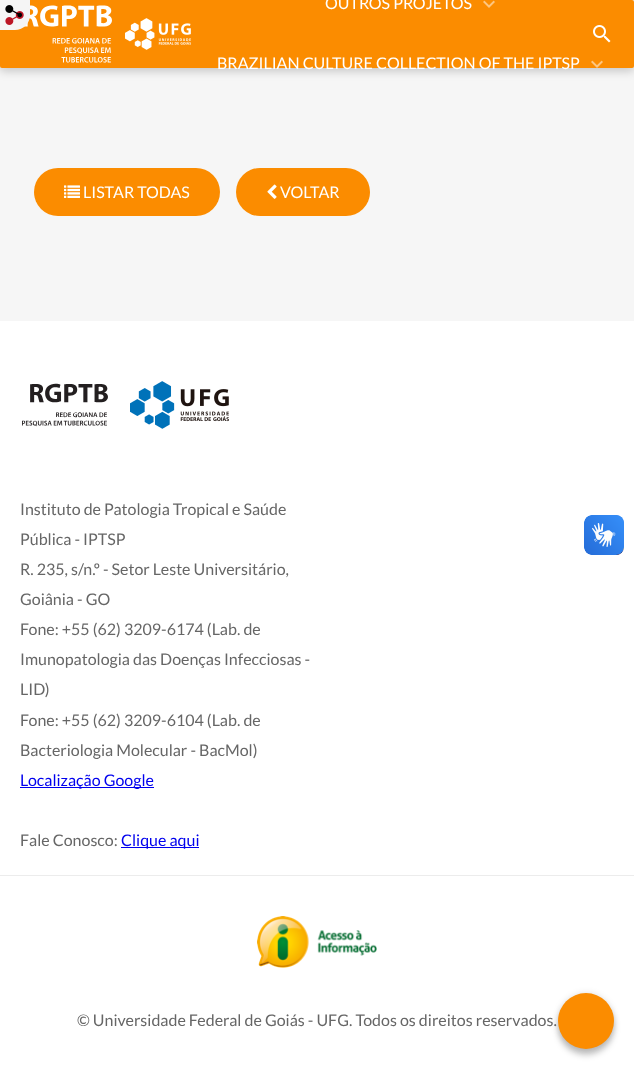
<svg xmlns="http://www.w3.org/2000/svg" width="634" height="1069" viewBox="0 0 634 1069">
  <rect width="100%" height="100%" fill="rgb(246,246,246)"/>
  <rect x="0" y="3" width="634" height="68" rx="2" fill="rgba(0,0,0,0.2)" filter="blur(5px)"/>
  <rect x="0" y="0" width="634" height="68" rx="2" fill="rgb(251,140,0)"/>
  <image x="24" y="5" width="88" height="58" href="pic2.png"/>
  <image x="0" y="0" width="30" height="30" href="pic1.png"/>
  <image x="125" y="18" width="66" height="32" href="pic3.png"/>
  <text x="325" y="9" font-family="Lato" font-size="16" fill="rgb(255,255,255)">OUTROS PROJETOS</text>
  <image x="483" y="0" width="12" height="8" href="pic4.png"/>
  <text x="217" y="69" font-family="Lato" font-size="16" fill="rgb(255,255,255)">BRAZILIAN CULTURE COLLECTION OF THE IPTSP</text>
  <image x="591" y="60" width="12" height="8" href="pic4.png"/>
  <image x="593" y="25" width="18" height="18" href="pic5.png"/>
  <rect x="34" y="168" width="186" height="48" rx="24" fill="rgb(251,140,0)"/>
  <image x="64" y="185" width="16" height="13" href="pic6.png"/>
  <text x="83" y="198" font-family="Lato" font-size="16" fill="rgb(255,255,255)">LISTAR TODAS</text>
  <rect x="236" y="168" width="134" height="48" rx="24" fill="rgb(251,140,0)"/>
  <image x="267" y="184" width="10" height="15" href="pic7.png"/>
  <text x="280" y="198" font-family="Lato" font-size="16" fill="rgb(255,255,255)">VOLTAR</text>
  <rect x="0" y="321" width="634" height="748" fill="rgb(255,255,255)"/>
  <image x="22" y="383" width="86" height="44" href="pic8.png"/>
  <image x="130" y="381" width="99" height="48" href="pic9.png"/>
  <g font-family="Lato" font-size="16" fill="rgb(102,102,102)">
    <text>
      <tspan x="20" y="515">Instituto de Patologia Tropical e Saúde</tspan>
      <tspan x="20" y="545">Pública - IPTSP</tspan>
      <tspan x="20" y="575">R. 235, s/n.º - Setor Leste Universitário,</tspan>
      <tspan x="20" y="605">Goiânia - GO</tspan>
      <tspan x="20" y="635">Fone: +55 (62) 3209-6174 (Lab. de</tspan>
      <tspan x="20" y="665">Imunopatologia das Doenças Infecciosas -</tspan>
      <tspan x="20" y="695">LID)</tspan>
      <tspan x="20" y="726">Fone: +55 (62) 3209-6104 (Lab. de</tspan>
      <tspan x="20" y="756">Bacteriologia Molecular - BacMol)</tspan>
    </text>
  </g>
  <rect x="20" y="787" width="134" height="1" fill="rgb(0,0,238)"/>
  <text x="20" y="786" font-family="Lato" font-size="16" fill="rgb(0,0,238)">Localização Google</text>
  <text x="20" y="846" font-family="Lato" font-size="16" fill="rgb(102,102,102)">Fale Conosco:</text>
  <rect x="121" y="847" width="78" height="1" fill="rgb(0,0,238)"/>
  <text x="121" y="846" font-family="Lato" font-size="16" fill="rgb(0,0,238)">Clique aqui</text>
  <rect x="0" y="875" width="634" height="1" fill="rgb(236,236,236)"/>
  <image x="257" y="916" width="120" height="52" href="pic10.png"/>
  <text x="77" y="1026" font-family="Lato" font-size="16" fill="rgb(102,102,102)">© Universidade Federal de Goiás - UFG. Todos os direitos reservados.</text>
  <rect x="558" y="993" width="56" height="56" rx="28" fill="rgba(0,0,0,0.12)" filter="blur(3px)"/>
  <rect x="558" y="999" width="56" height="56" rx="28" fill="rgba(0,0,0,0.24)" filter="blur(3px)"/>
  <circle cx="586" cy="1021" r="28" fill="rgb(251,140,0)"/>
  <image x="584" y="515" width="40" height="40" href="pic11.png"/>
  <image x="584" y="515" width="40" height="40" href="pic12.png"/>
</svg>
